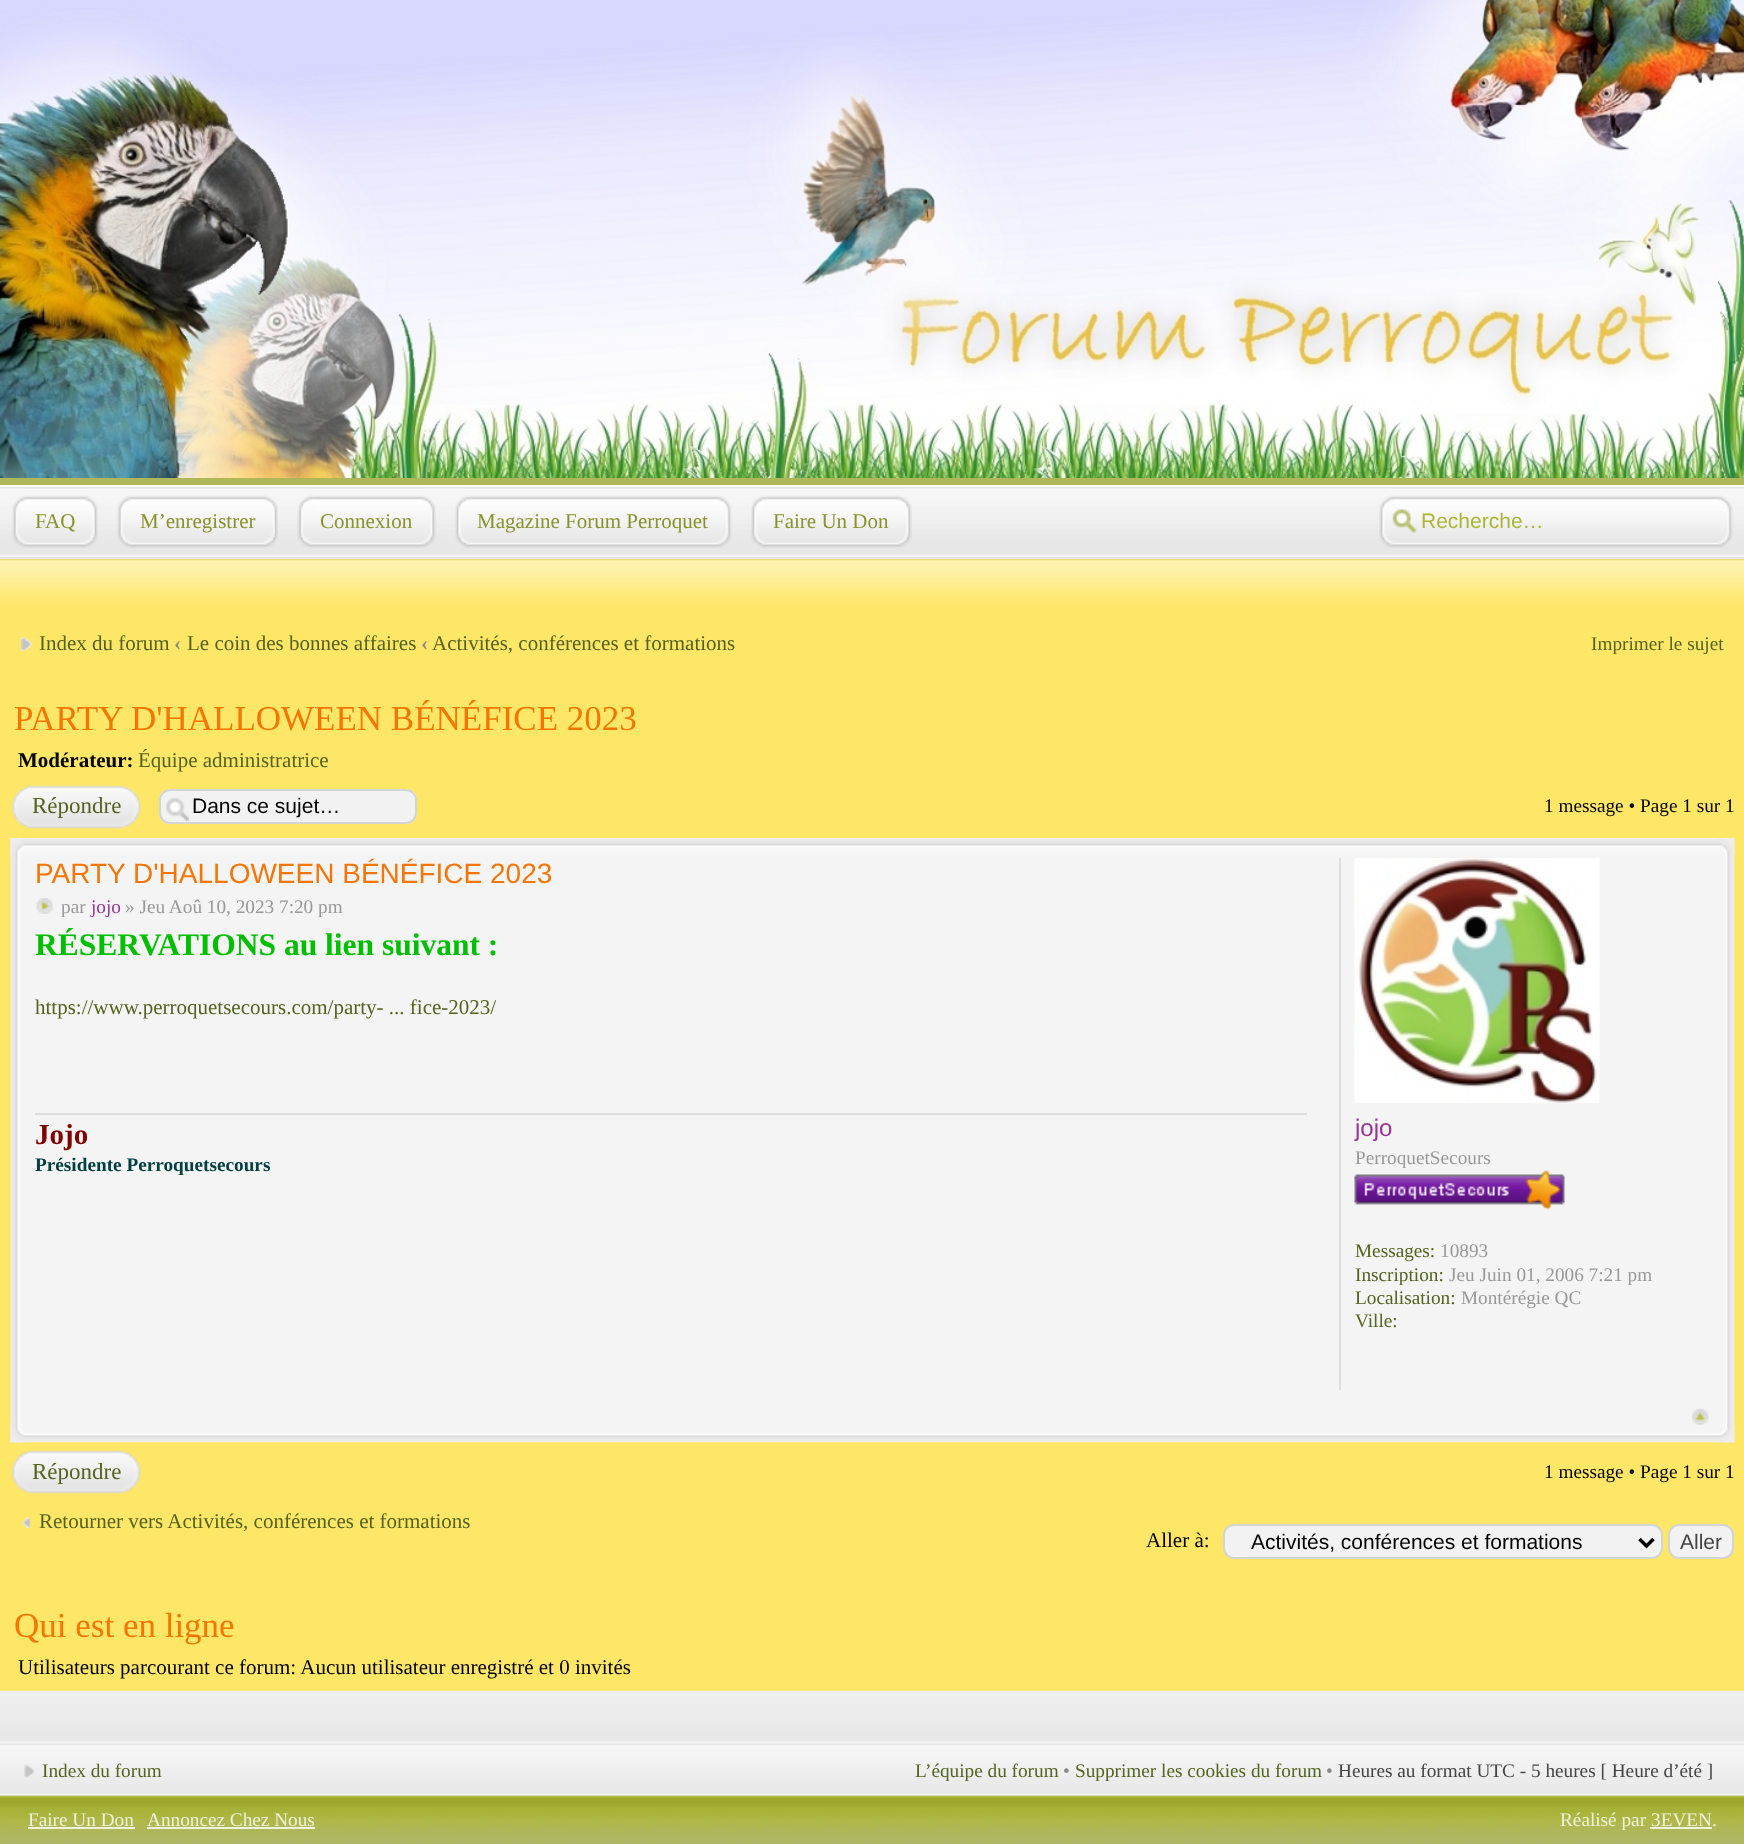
<svg xmlns="http://www.w3.org/2000/svg" width="1744" height="1844" viewBox="0 0 1744 1844">
  <rect width="100%" height="100%" fill="rgb(238,238,238)"/>
  <rect x="0" y="478" width="1744" height="7" fill="rgb(175,183,89)"/>
  <rect x="0" y="485" width="1744" height="2" fill="rgb(255,255,255)"/>
  <image x="0" y="0" width="1744" height="478" href="pic1.png"/>
  <image x="0" y="487" width="1744" height="70" href="pic2.png"/>
  <image x="28" y="495" width="70" height="53" href="pic3.png"/>
  <image x="12" y="495" width="16" height="53" href="pic4.png"/>
  <text x="35" y="528" font-family="Liberation Serif" font-size="21" fill="rgb(137,146,43)">FAQ</text>
  <image x="133" y="495" width="145" height="53" href="pic5.png"/>
  <image x="117" y="495" width="16" height="53" href="pic6.png"/>
  <text x="140" y="528" font-family="Liberation Serif" font-size="21" fill="rgb(137,146,43)">M’enregistrer</text>
  <image x="313" y="495" width="123" height="53" href="pic7.png"/>
  <image x="297" y="495" width="16" height="53" href="pic8.png"/>
  <text x="320" y="528" font-family="Liberation Serif" font-size="21" fill="rgb(137,146,43)">Connexion</text>
  <image x="470" y="495" width="262" height="53" href="pic9.png"/>
  <image x="455" y="495" width="16" height="53" href="pic10.png"/>
  <text x="477" y="528" font-family="Liberation Serif" font-size="21" fill="rgb(137,146,43)">Magazine Forum Perroquet</text>
  <image x="766" y="495" width="146" height="53" href="pic11.png"/>
  <image x="751" y="495" width="16" height="53" href="pic12.png"/>
  <text x="773" y="528" font-family="Liberation Serif" font-size="21" fill="rgb(137,146,43)">Faire Un Don</text>
  <image x="1379" y="495" width="354" height="53" href="pic13.png"/>
  <text x="1421" y="528" font-family="Liberation Sans" font-size="21" fill="rgb(172,182,53)">Recherche…</text>
  <rect x="0" y="559" width="1744" height="1132" fill="rgb(254,231,102)"/>
  <image x="0" y="559" width="1744" height="48" href="pic14.png"/>
  <rect x="0" y="557" width="1744" height="2" fill="rgb(226,226,226)"/>
  <image x="21" y="637" width="11" height="15" href="pic15.png"/>
  <text x="39" y="650" font-family="Liberation Serif" font-size="21" fill="rgb(85,98,32)">Index du forum</text>
  <text x="174" y="650" font-family="Liberation Serif" font-size="21" font-weight="bold" fill="rgb(136,136,136)">‹</text>
  <text x="187" y="650" font-family="Liberation Serif" font-size="21" fill="rgb(85,98,32)">Le coin des bonnes affaires</text>
  <text x="421" y="650" font-family="Liberation Serif" font-size="21" font-weight="bold" fill="rgb(136,136,136)">‹</text>
  <text x="432" y="650" font-family="Liberation Serif" font-size="21" fill="rgb(85,98,32)">Activités, conférences et formations</text>
  <text x="1591" y="650" font-family="Liberation Serif" font-size="19.25" fill="rgb(85,98,32)">Imprimer le sujet</text>
  <text x="14" y="730" font-family="Liberation Serif" font-size="35" fill="rgb(245,118,5)">PARTY D'HALLOWEEN BÉNÉFICE 2023</text>
  <text x="18" y="767" font-family="Liberation Serif" font-size="21" font-weight="bold" fill="rgb(0,0,0)">Modérateur:</text>
  <text x="138" y="767" font-family="Liberation Serif" font-size="21" fill="rgb(85,98,32)">Équipe administratrice</text>
  <image x="28" y="785" width="113" height="44" href="pic16.png"/>
  <image x="11" y="785" width="17" height="44" href="pic17.png"/>
  <text x="32" y="813" font-family="Liberation Serif" font-size="23" fill="rgb(85,98,32)">Répondre</text>
  <rect x="159" y="789" width="258" height="35" rx="11" fill="rgb(242,242,242)"/>
  <image x="166" y="798" width="23" height="23" href="pic18.png"/>
  <rect x="160" y="790" width="256" height="33" rx="10" fill="none" stroke="rgb(212,212,212)" stroke-width="2"/>
  <text x="192" y="813" font-family="Liberation Sans" font-size="21" fill="rgb(0,0,0)">Dans ce sujet…</text>
  <text x="1544" y="812" font-family="Liberation Serif" font-size="19.25" fill="rgb(0,0,0)">1 message • Page 1 sur 1</text>
  <rect x="11" y="838" width="1723" height="596" fill="rgb(244,244,244)"/>
  <image x="10" y="838" width="1725" height="605" href="pic19.png"/>
  <text x="35" y="883" font-family="Liberation Sans" font-size="28" fill="rgb(245,118,5)">PARTY D'HALLOWEEN BÉNÉFICE 2023</text>
  <image x="36" y="898" width="17" height="16" href="pic20.png"/>
  <text x="61" y="913" font-family="Liberation Serif" font-size="19.25" fill="rgb(153,153,153)">par</text>
  <text x="91" y="913" font-family="Liberation Serif" font-size="19.25" fill="rgb(153,51,153)">jojo</text>
  <text x="125" y="913" font-family="Liberation Serif" font-size="19.25" fill="rgb(153,153,153)">» Jeu Aoû 10, 2023 7:20 pm</text>
  <text x="35" y="955" font-family="Liberation Serif" font-size="31.5" font-weight="bold" fill="rgb(0,191,0)">RÉSERVATIONS au lien suivant :</text>
  <text x="35" y="1014" font-family="Liberation Serif" font-size="21" fill="rgb(85,98,32)">https://www.perroquetsecours.com/party- ... fice-2023/</text>
  <rect x="35" y="1113" width="1272" height="2" fill="rgb(221,221,221)"/>
  <text x="35" y="1144" font-family="Liberation Serif" font-size="29" font-weight="bold" fill="rgb(128,0,0)">Jojo</text>
  <text x="35" y="1171" font-family="Liberation Serif" font-size="19.25" font-weight="bold" fill="rgb(0,64,64)">Présidente Perroquetsecours</text>
  <rect x="1339" y="858" width="2" height="532" fill="rgb(221,221,221)"/>
  <image x="1354" y="858" width="246" height="245" href="pic21.png"/>
  <text x="1355" y="1136" font-family="Liberation Sans" font-size="24" fill="rgb(153,51,153)">jojo</text>
  <text x="1355" y="1164" font-family="Liberation Serif" font-size="19.25" fill="rgb(153,153,153)">PerroquetSecours</text>
  <image x="1354" y="1170" width="211" height="40" href="pic22.png"/>
  <text x="1355" y="1257" font-family="Liberation Serif" font-size="19.25" fill="rgb(85,98,32)">Messages:</text>
  <text x="1440" y="1257" font-family="Liberation Serif" font-size="19.25" fill="rgb(153,153,153)">10893</text>
  <text x="1355" y="1281" font-family="Liberation Serif" font-size="19.25" fill="rgb(85,98,32)">Inscription:</text>
  <text x="1449" y="1281" font-family="Liberation Serif" font-size="19.25" fill="rgb(153,153,153)">Jeu Juin 01, 2006 7:21 pm</text>
  <text x="1355" y="1304" font-family="Liberation Serif" font-size="19.25" fill="rgb(85,98,32)">Localisation:</text>
  <text x="1461" y="1304" font-family="Liberation Serif" font-size="19.25" fill="rgb(153,153,153)">Montérégie QC</text>
  <text x="1355" y="1327" font-family="Liberation Serif" font-size="19.25" fill="rgb(85,98,32)">Ville:</text>
  <image x="1692" y="1408" width="17" height="17" href="pic23.png"/>
  <image x="28" y="1450" width="113" height="44" href="pic16.png"/>
  <image x="11" y="1450" width="17" height="44" href="pic17.png"/>
  <text x="32" y="1479" font-family="Liberation Serif" font-size="23" fill="rgb(85,98,32)">Répondre</text>
  <text x="1544" y="1478" font-family="Liberation Serif" font-size="19.25" fill="rgb(0,0,0)">1 message • Page 1 sur 1</text>
  <image x="22" y="1517" width="8" height="11" href="pic24.png"/>
  <text x="39" y="1528" font-family="Liberation Serif" font-size="21" fill="rgb(85,98,32)">Retourner vers Activités, conférences et formations</text>
  <text x="1146" y="1547" font-family="Liberation Serif" font-size="21" fill="rgb(0,0,0)">Aller à:</text>
  <rect x="1224" y="1525" width="438" height="33" rx="10" fill="rgb(242,242,242)" stroke="rgb(212,212,212)" stroke-width="2"/>
  <path d="M1639.5 1539L1646.5 1546L1653.5 1539" fill="none" stroke="rgb(0,0,0)" stroke-width="3.5"/>
  <text x="1251" y="1549" font-family="Liberation Sans" font-size="21" fill="rgb(0,0,0)">Activités, conférences et formations</text>
  <rect x="1669" y="1525" width="64" height="33" rx="10" fill="rgb(242,242,242)" stroke="rgb(212,212,212)" stroke-width="2"/>
  <text x="1680" y="1549" font-family="Liberation Sans" font-size="21" fill="rgb(68,68,68)">Aller</text>
  <text x="14" y="1637" font-family="Liberation Serif" font-size="35" fill="rgb(245,118,5)">Qui est en ligne</text>
  <text x="18" y="1674" font-family="Liberation Serif" font-size="21" fill="rgb(0,0,0)">Utilisateurs parcourant ce forum: Aucun utilisateur enregistré et 0 invités</text>
  <image x="0" y="1690" width="1744" height="154" href="pic25.png"/>
  <image x="24" y="1764" width="11" height="14" href="pic26.png"/>
  <g font-family="Liberation Serif" font-size="19.25" fill="rgb(85,98,32)">
    <text x="42" y="1777">Index du forum</text>
    <text x="915" y="1777">L’équipe du forum</text>
  </g>
  <text x="1063" y="1777" font-family="Liberation Serif" font-size="19.25" fill="rgb(136,136,136)">•</text>
  <text x="1075" y="1777" font-family="Liberation Serif" font-size="19.25" fill="rgb(85,98,32)">Supprimer les cookies du forum</text>
  <text x="1326" y="1777" font-family="Liberation Serif" font-size="19.25" fill="rgb(136,136,136)">•</text>
  <text x="1338" y="1777" font-family="Liberation Serif" font-size="19.25" fill="rgb(68,68,68)">Heures au format UTC - 5 heures [ Heure d’été ]</text>
  <text x="28" y="1826" font-family="Liberation Serif" font-size="19.25" fill="rgb(239,241,218)">Faire Un Don</text>
  <rect x="28" y="1827" width="107" height="2" fill="rgba(255,255,255,0.8)"/>
  <text x="147" y="1826" font-family="Liberation Serif" font-size="19.25" fill="rgb(239,241,218)">Annoncez Chez Nous</text>
  <rect x="147" y="1827" width="168" height="2" fill="rgba(255,255,255,0.8)"/>
  <g font-family="Liberation Serif" font-size="19.25" fill="rgb(239,241,218)">
    <text x="1560" y="1826">Réalisé par</text>
    <text x="1651" y="1826">3EVEN</text>
  </g>
  <rect x="1650" y="1827" width="62" height="2" fill="rgba(255,255,255,0.8)"/>
  <text x="1712" y="1826" font-family="Liberation Serif" font-size="19.25" fill="rgb(239,241,218)">.</text>
</svg>
